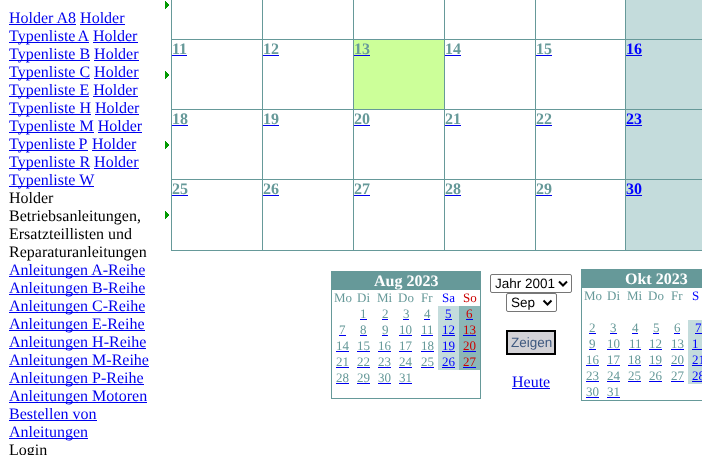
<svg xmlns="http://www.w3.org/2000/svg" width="702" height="455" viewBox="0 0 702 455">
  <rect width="100%" height="100%" fill="rgb(255,255,255)"/>
  <text x="9" y="23" font-family="Liberation Serif" font-size="16" fill="rgb(0,0,238)">Holder A8 Holder</text>
  <rect x="9" y="24" width="67" height="1" fill="rgb(0,0,238)"/>
  <rect x="9" y="42" width="80" height="1" fill="rgb(0,0,238)"/>
  <text x="9" y="41" word-spacing="-1" font-family="Liberation Serif" font-size="16" fill="rgb(0,0,238)">Typenliste A</text>
  <rect x="80" y="24" width="45" height="1" fill="rgb(0,0,238)"/>
  <text x="93" y="41" font-family="Liberation Serif" font-size="16" fill="rgb(0,0,238)">Holder</text>
  <rect x="93" y="42" width="45" height="1" fill="rgb(0,0,238)"/>
  <rect x="9" y="60" width="81" height="1" fill="rgb(0,0,238)"/>
  <text x="9" y="59" font-family="Liberation Serif" font-size="16" fill="rgb(0,0,238)">Typenliste B Holder</text>
  <rect x="9" y="78" width="81" height="1" fill="rgb(0,0,238)"/>
  <text x="9" y="77" font-family="Liberation Serif" font-size="16" fill="rgb(0,0,238)">Typenliste C Holder</text>
  <rect x="94" y="60" width="45" height="1" fill="rgb(0,0,238)"/>
  <rect x="9" y="96" width="80" height="1" fill="rgb(0,0,238)"/>
  <text x="9" y="95" font-family="Liberation Serif" font-size="16" fill="rgb(0,0,238)">Typenliste E Holder</text>
  <rect x="94" y="78" width="45" height="1" fill="rgb(0,0,238)"/>
  <rect x="9" y="114" width="82" height="1" fill="rgb(0,0,238)"/>
  <text x="9" y="113" font-family="Liberation Serif" font-size="16" fill="rgb(0,0,238)">Typenliste H Holder</text>
  <rect x="93" y="96" width="45" height="1" fill="rgb(0,0,238)"/>
  <rect x="9" y="132" width="85" height="1" fill="rgb(0,0,238)"/>
  <text x="9" y="131" font-family="Liberation Serif" font-size="16" fill="rgb(0,0,238)">Typenliste M Holder</text>
  <rect x="95" y="114" width="44" height="1" fill="rgb(0,0,238)"/>
  <rect x="9" y="150" width="79" height="1" fill="rgb(0,0,238)"/>
  <text x="9" y="149" word-spacing="-1" font-family="Liberation Serif" font-size="16" fill="rgb(0,0,238)">Typenliste P</text>
  <rect x="98" y="132" width="44" height="1" fill="rgb(0,0,238)"/>
  <text x="92" y="149" font-family="Liberation Serif" font-size="16" fill="rgb(0,0,238)">Holder</text>
  <rect x="92" y="150" width="44" height="1" fill="rgb(0,0,238)"/>
  <rect x="9" y="168" width="81" height="1" fill="rgb(0,0,238)"/>
  <text x="9" y="167" font-family="Liberation Serif" font-size="16" fill="rgb(0,0,238)">Typenliste R Holder</text>
  <rect x="9" y="186" width="85" height="1" fill="rgb(0,0,238)"/>
  <text x="9" y="185" font-family="Liberation Serif" font-size="16" fill="rgb(0,0,238)">Typenliste W</text>
  <rect x="94" y="168" width="45" height="1" fill="rgb(0,0,238)"/>
  <g font-family="Liberation Serif" font-size="16" fill="rgb(0,0,0)">
    <text>
      <tspan x="9" y="203">Holder</tspan>
      <tspan x="9" y="221">Betriebsanleitungen,</tspan>
      <tspan x="9" y="239">Ersatzteillisten und</tspan>
      <tspan x="9" y="257">Reparaturanleitungen</tspan>
    </text>
  </g>
  <rect x="9" y="276" width="136" height="1" fill="rgb(0,0,238)"/>
  <text x="9" y="275" font-family="Liberation Serif" font-size="16" fill="rgb(0,0,238)">Anleitungen A-Reihe</text>
  <rect x="9" y="294" width="136" height="1" fill="rgb(0,0,238)"/>
  <text x="9" y="293" font-family="Liberation Serif" font-size="16" fill="rgb(0,0,238)">Anleitungen B-Reihe</text>
  <rect x="9" y="312" width="136" height="1" fill="rgb(0,0,238)"/>
  <text x="9" y="311" font-family="Liberation Serif" font-size="16" fill="rgb(0,0,238)">Anleitungen C-Reihe</text>
  <rect x="9" y="330" width="136" height="1" fill="rgb(0,0,238)"/>
  <text x="9" y="329" font-family="Liberation Serif" font-size="16" fill="rgb(0,0,238)">Anleitungen E-Reihe</text>
  <rect x="9" y="348" width="137" height="1" fill="rgb(0,0,238)"/>
  <text x="9" y="347" font-family="Liberation Serif" font-size="16" fill="rgb(0,0,238)">Anleitungen H-Reihe</text>
  <rect x="9" y="366" width="140" height="1" fill="rgb(0,0,238)"/>
  <text x="9" y="365" font-family="Liberation Serif" font-size="16" fill="rgb(0,0,238)">Anleitungen M-Reihe</text>
  <rect x="9" y="384" width="135" height="1" fill="rgb(0,0,238)"/>
  <text x="9" y="383" font-family="Liberation Serif" font-size="16" fill="rgb(0,0,238)">Anleitungen P-Reihe</text>
  <rect x="9" y="402" width="138" height="1" fill="rgb(0,0,238)"/>
  <g font-family="Liberation Serif" font-size="16" fill="rgb(0,0,238)">
    <text>
      <tspan x="9" y="401">Anleitungen Motoren</tspan>
      <tspan x="9" y="419">Bestellen von</tspan>
    </text>
  </g>
  <rect x="9" y="420" width="88" height="1" fill="rgb(0,0,238)"/>
  <rect x="9" y="438" width="79" height="1" fill="rgb(0,0,238)"/>
  <text x="9" y="437" font-family="Liberation Serif" font-size="16" fill="rgb(0,0,238)">Anleitungen</text>
  <text x="9" y="455" font-family="Liberation Serif" font-size="16" fill="rgb(0,0,0)">Login</text>
  <image x="165" y="1" width="4" height="8" href="pic1.png"/>
  <rect x="625" y="39" width="77" height="1" fill="rgb(102,153,153)"/>
  <rect x="625" y="109" width="77" height="1" fill="rgb(102,153,153)"/>
  <rect x="625" y="179" width="77" height="1" fill="rgb(102,153,153)"/>
  <rect x="625" y="250" width="77" height="1" fill="rgb(102,153,153)"/>
  <rect x="625" y="179" width="1" height="72" fill="rgb(102,153,153)"/>
  <rect x="535" y="179" width="91" height="1" fill="rgb(102,153,153)"/>
  <rect x="625" y="109" width="1" height="71" fill="rgb(102,153,153)"/>
  <rect x="535" y="109" width="91" height="1" fill="rgb(102,153,153)"/>
  <rect x="625" y="39" width="1" height="71" fill="rgb(102,153,153)"/>
  <rect x="535" y="39" width="91" height="1" fill="rgb(102,153,153)"/>
  <rect x="535" y="250" width="91" height="1" fill="rgb(102,153,153)"/>
  <rect x="535" y="179" width="1" height="72" fill="rgb(102,153,153)"/>
  <rect x="444" y="179" width="92" height="1" fill="rgb(102,153,153)"/>
  <rect x="535" y="109" width="1" height="71" fill="rgb(102,153,153)"/>
  <rect x="444" y="109" width="92" height="1" fill="rgb(102,153,153)"/>
  <rect x="535" y="39" width="1" height="71" fill="rgb(102,153,153)"/>
  <rect x="444" y="39" width="92" height="1" fill="rgb(102,153,153)"/>
  <rect x="444" y="250" width="92" height="1" fill="rgb(102,153,153)"/>
  <rect x="444" y="179" width="1" height="72" fill="rgb(102,153,153)"/>
  <rect x="353" y="179" width="92" height="1" fill="rgb(102,153,153)"/>
  <rect x="444" y="109" width="1" height="71" fill="rgb(102,153,153)"/>
  <rect x="353" y="109" width="92" height="1" fill="rgb(102,153,153)"/>
  <rect x="444" y="39" width="1" height="71" fill="rgb(102,153,153)"/>
  <rect x="353" y="39" width="92" height="1" fill="rgb(102,153,153)"/>
  <rect x="353" y="250" width="92" height="1" fill="rgb(102,153,153)"/>
  <rect x="353" y="179" width="1" height="72" fill="rgb(102,153,153)"/>
  <rect x="262" y="179" width="92" height="1" fill="rgb(102,153,153)"/>
  <rect x="353" y="109" width="1" height="71" fill="rgb(102,153,153)"/>
  <rect x="262" y="109" width="92" height="1" fill="rgb(102,153,153)"/>
  <rect x="353" y="39" width="1" height="71" fill="rgb(102,153,153)"/>
  <rect x="262" y="39" width="92" height="1" fill="rgb(102,153,153)"/>
  <rect x="262" y="250" width="92" height="1" fill="rgb(102,153,153)"/>
  <rect x="262" y="179" width="1" height="72" fill="rgb(102,153,153)"/>
  <rect x="171" y="179" width="92" height="1" fill="rgb(102,153,153)"/>
  <rect x="262" y="109" width="1" height="71" fill="rgb(102,153,153)"/>
  <rect x="171" y="109" width="92" height="1" fill="rgb(102,153,153)"/>
  <rect x="262" y="39" width="1" height="71" fill="rgb(102,153,153)"/>
  <rect x="171" y="39" width="92" height="1" fill="rgb(102,153,153)"/>
  <rect x="262" y="0" width="1" height="40" fill="rgb(102,153,153)"/>
  <rect x="353" y="0" width="1" height="40" fill="rgb(102,153,153)"/>
  <rect x="444" y="0" width="1" height="40" fill="rgb(102,153,153)"/>
  <rect x="535" y="0" width="1" height="40" fill="rgb(102,153,153)"/>
  <rect x="626" y="0" width="76" height="39" fill="rgb(196,220,220)"/>
  <rect x="625" y="0" width="1" height="40" fill="rgb(102,153,153)"/>
  <rect x="171" y="250" width="92" height="1" fill="rgb(102,153,153)"/>
  <rect x="171" y="179" width="1" height="72" fill="rgb(102,153,153)"/>
  <rect x="171" y="109" width="1" height="71" fill="rgb(102,153,153)"/>
  <rect x="171" y="0" width="1" height="110" fill="rgb(102,153,153)"/>
  <text x="172" y="54" font-family="Liberation Serif" font-size="16" font-weight="bold" fill="rgb(102,153,153)">11</text>
  <rect x="172" y="55" width="15" height="1" fill="rgb(0,0,238)"/>
  <text x="263" y="54" font-family="Liberation Serif" font-size="16" font-weight="bold" fill="rgb(102,153,153)">12</text>
  <rect x="263" y="55" width="16" height="1" fill="rgb(0,0,238)"/>
  <rect x="354" y="40" width="90" height="69" fill="rgb(204,255,153)"/>
  <text x="354" y="54" font-family="Liberation Serif" font-size="16" font-weight="bold" fill="rgb(102,153,153)">13</text>
  <rect x="354" y="55" width="16" height="1" fill="rgb(0,0,238)"/>
  <text x="445" y="54" font-family="Liberation Serif" font-size="16" font-weight="bold" fill="rgb(102,153,153)">14</text>
  <rect x="445" y="55" width="16" height="1" fill="rgb(0,0,238)"/>
  <text x="536" y="54" font-family="Liberation Serif" font-size="16" font-weight="bold" fill="rgb(102,153,153)">15</text>
  <rect x="536" y="55" width="16" height="1" fill="rgb(0,0,238)"/>
  <rect x="626" y="40" width="76" height="69" fill="rgb(196,220,220)"/>
  <text x="626" y="54" font-family="Liberation Serif" font-size="16" font-weight="bold" fill="rgb(0,0,255)">16</text>
  <rect x="626" y="55" width="16" height="1" fill="rgb(0,0,238)"/>
  <image x="165" y="71" width="4" height="8" href="pic1.png"/>
  <text x="172" y="124" font-family="Liberation Serif" font-size="16" font-weight="bold" fill="rgb(102,153,153)">18</text>
  <rect x="172" y="125" width="16" height="1" fill="rgb(0,0,238)"/>
  <text x="263" y="124" font-family="Liberation Serif" font-size="16" font-weight="bold" fill="rgb(102,153,153)">19</text>
  <rect x="263" y="125" width="16" height="1" fill="rgb(0,0,238)"/>
  <text x="354" y="124" font-family="Liberation Serif" font-size="16" font-weight="bold" fill="rgb(102,153,153)">20</text>
  <rect x="354" y="125" width="16" height="1" fill="rgb(0,0,238)"/>
  <text x="445" y="124" font-family="Liberation Serif" font-size="16" font-weight="bold" fill="rgb(102,153,153)">21</text>
  <rect x="445" y="125" width="16" height="1" fill="rgb(0,0,238)"/>
  <text x="536" y="124" font-family="Liberation Serif" font-size="16" font-weight="bold" fill="rgb(102,153,153)">22</text>
  <rect x="536" y="125" width="16" height="1" fill="rgb(0,0,238)"/>
  <rect x="626" y="110" width="76" height="69" fill="rgb(196,220,220)"/>
  <text x="626" y="124" font-family="Liberation Serif" font-size="16" font-weight="bold" fill="rgb(0,0,255)">23</text>
  <rect x="626" y="125" width="16" height="1" fill="rgb(0,0,238)"/>
  <image x="165" y="141" width="4" height="8" href="pic1.png"/>
  <text x="172" y="194" font-family="Liberation Serif" font-size="16" font-weight="bold" fill="rgb(102,153,153)">25</text>
  <rect x="172" y="195" width="16" height="1" fill="rgb(0,0,238)"/>
  <text x="263" y="194" font-family="Liberation Serif" font-size="16" font-weight="bold" fill="rgb(102,153,153)">26</text>
  <rect x="263" y="195" width="16" height="1" fill="rgb(0,0,238)"/>
  <text x="354" y="194" font-family="Liberation Serif" font-size="16" font-weight="bold" fill="rgb(102,153,153)">27</text>
  <rect x="354" y="195" width="16" height="1" fill="rgb(0,0,238)"/>
  <text x="445" y="194" font-family="Liberation Serif" font-size="16" font-weight="bold" fill="rgb(102,153,153)">28</text>
  <rect x="445" y="195" width="16" height="1" fill="rgb(0,0,238)"/>
  <text x="536" y="194" font-family="Liberation Serif" font-size="16" font-weight="bold" fill="rgb(102,153,153)">29</text>
  <rect x="536" y="195" width="16" height="1" fill="rgb(0,0,238)"/>
  <rect x="626" y="180" width="76" height="70" fill="rgb(196,220,220)"/>
  <text x="626" y="194" font-family="Liberation Serif" font-size="16" font-weight="bold" fill="rgb(0,0,255)">30</text>
  <rect x="626" y="195" width="16" height="1" fill="rgb(0,0,238)"/>
  <image x="165" y="211" width="4" height="8" href="pic1.png"/>
  <rect x="331" y="271" width="150" height="1" fill="rgb(102,153,153)"/>
  <rect x="480" y="271" width="1" height="128" fill="rgb(102,153,153)"/>
  <rect x="331" y="398" width="150" height="1" fill="rgb(102,153,153)"/>
  <rect x="331" y="271" width="1" height="128" fill="rgb(102,153,153)"/>
  <rect x="332" y="272" width="148" height="18" fill="rgb(102,153,153)"/>
  <text x="374" y="286" font-family="Liberation Serif" font-size="16" font-weight="bold" fill="rgb(255,255,255)">Aug 2023</text>
  <g font-family="Liberation Serif" font-size="13" fill="rgb(102,153,153)">
    <text x="334" y="302">Mo</text>
    <text x="357" y="302">Di</text>
    <text x="377" y="302">Mi</text>
    <text x="398" y="302">Do</text>
    <text x="421" y="302">Fr</text>
  </g>
  <text x="442" y="302" font-family="Liberation Serif" font-size="13" fill="rgb(0,0,255)">Sa</text>
  <text x="463" y="302" font-family="Liberation Serif" font-size="13" fill="rgb(204,0,0)">So</text>
  <text x="360" y="318" font-family="Liberation Serif" font-size="13" fill="rgb(102,153,153)">1</text>
  <rect x="360" y="319" width="7" height="1" fill="rgb(0,0,238)"/>
  <text x="382" y="318" font-family="Liberation Serif" font-size="13" fill="rgb(102,153,153)">2</text>
  <rect x="382" y="319" width="6" height="1" fill="rgb(0,0,238)"/>
  <text x="403" y="318" font-family="Liberation Serif" font-size="13" fill="rgb(102,153,153)">3</text>
  <rect x="403" y="319" width="6" height="1" fill="rgb(0,0,238)"/>
  <text x="424" y="318" font-family="Liberation Serif" font-size="13" fill="rgb(102,153,153)">4</text>
  <rect x="424" y="319" width="6" height="1" fill="rgb(0,0,238)"/>
  <rect x="438" y="306" width="21" height="64" fill="rgb(196,220,220)"/>
  <text x="445" y="318" font-family="Liberation Serif" font-size="13" fill="rgb(0,0,255)">5</text>
  <rect x="445" y="319" width="7" height="1" fill="rgb(0,0,238)"/>
  <rect x="459" y="306" width="21" height="64" fill="rgb(139,183,183)"/>
  <text x="466" y="318" font-family="Liberation Serif" font-size="13" fill="rgb(204,0,0)">6</text>
  <rect x="466" y="319" width="7" height="1" fill="rgb(0,0,238)"/>
  <text x="339" y="334" font-family="Liberation Serif" font-size="13" fill="rgb(102,153,153)">7</text>
  <rect x="339" y="335" width="7" height="1" fill="rgb(0,0,238)"/>
  <text x="360" y="334" font-family="Liberation Serif" font-size="13" fill="rgb(102,153,153)">8</text>
  <rect x="360" y="335" width="7" height="1" fill="rgb(0,0,238)"/>
  <text x="382" y="334" font-family="Liberation Serif" font-size="13" fill="rgb(102,153,153)">9</text>
  <rect x="382" y="335" width="6" height="1" fill="rgb(0,0,238)"/>
  <text x="399" y="334" font-family="Liberation Serif" font-size="13" fill="rgb(102,153,153)">10</text>
  <rect x="399" y="335" width="13" height="1" fill="rgb(0,0,238)"/>
  <text x="421" y="334" font-family="Liberation Serif" font-size="13" fill="rgb(102,153,153)">11</text>
  <rect x="421" y="335" width="12" height="1" fill="rgb(0,0,238)"/>
  <text x="442" y="334" font-family="Liberation Serif" font-size="13" fill="rgb(0,0,255)">12</text>
  <rect x="442" y="335" width="13" height="1" fill="rgb(0,0,238)"/>
  <text x="463" y="334" font-family="Liberation Serif" font-size="13" fill="rgb(204,0,0)">13</text>
  <rect x="463" y="335" width="13" height="1" fill="rgb(0,0,238)"/>
  <text x="336" y="350" font-family="Liberation Serif" font-size="13" fill="rgb(102,153,153)">14</text>
  <rect x="336" y="351" width="13" height="1" fill="rgb(0,0,238)"/>
  <text x="357" y="350" font-family="Liberation Serif" font-size="13" fill="rgb(102,153,153)">15</text>
  <rect x="357" y="351" width="13" height="1" fill="rgb(0,0,238)"/>
  <text x="378" y="350" font-family="Liberation Serif" font-size="13" fill="rgb(102,153,153)">16</text>
  <rect x="378" y="351" width="13" height="1" fill="rgb(0,0,238)"/>
  <text x="399" y="350" font-family="Liberation Serif" font-size="13" fill="rgb(102,153,153)">17</text>
  <rect x="399" y="351" width="13" height="1" fill="rgb(0,0,238)"/>
  <text x="421" y="350" font-family="Liberation Serif" font-size="13" fill="rgb(102,153,153)">18</text>
  <rect x="421" y="351" width="13" height="1" fill="rgb(0,0,238)"/>
  <text x="442" y="350" font-family="Liberation Serif" font-size="13" fill="rgb(0,0,255)">19</text>
  <rect x="442" y="351" width="13" height="1" fill="rgb(0,0,238)"/>
  <text x="463" y="350" font-family="Liberation Serif" font-size="13" fill="rgb(204,0,0)">20</text>
  <rect x="463" y="351" width="13" height="1" fill="rgb(0,0,238)"/>
  <text x="336" y="366" font-family="Liberation Serif" font-size="13" fill="rgb(102,153,153)">21</text>
  <rect x="336" y="367" width="13" height="1" fill="rgb(0,0,238)"/>
  <text x="357" y="366" font-family="Liberation Serif" font-size="13" fill="rgb(102,153,153)">22</text>
  <rect x="357" y="367" width="13" height="1" fill="rgb(0,0,238)"/>
  <text x="378" y="366" font-family="Liberation Serif" font-size="13" fill="rgb(102,153,153)">23</text>
  <rect x="378" y="367" width="13" height="1" fill="rgb(0,0,238)"/>
  <text x="399" y="366" font-family="Liberation Serif" font-size="13" fill="rgb(102,153,153)">24</text>
  <rect x="399" y="367" width="13" height="1" fill="rgb(0,0,238)"/>
  <text x="421" y="366" font-family="Liberation Serif" font-size="13" fill="rgb(102,153,153)">25</text>
  <rect x="421" y="367" width="13" height="1" fill="rgb(0,0,238)"/>
  <text x="442" y="366" font-family="Liberation Serif" font-size="13" fill="rgb(0,0,255)">26</text>
  <rect x="442" y="367" width="13" height="1" fill="rgb(0,0,238)"/>
  <text x="463" y="366" font-family="Liberation Serif" font-size="13" fill="rgb(204,0,0)">27</text>
  <rect x="463" y="367" width="13" height="1" fill="rgb(0,0,238)"/>
  <text x="336" y="382" font-family="Liberation Serif" font-size="13" fill="rgb(102,153,153)">28</text>
  <rect x="336" y="383" width="13" height="1" fill="rgb(0,0,238)"/>
  <text x="357" y="382" font-family="Liberation Serif" font-size="13" fill="rgb(102,153,153)">29</text>
  <rect x="357" y="383" width="13" height="1" fill="rgb(0,0,238)"/>
  <text x="378" y="382" font-family="Liberation Serif" font-size="13" fill="rgb(102,153,153)">30</text>
  <rect x="378" y="383" width="13" height="1" fill="rgb(0,0,238)"/>
  <text x="399" y="382" font-family="Liberation Serif" font-size="13" fill="rgb(102,153,153)">31</text>
  <rect x="399" y="383" width="13" height="1" fill="rgb(0,0,238)"/>
  <rect x="490.5" y="274.5" width="81" height="18" rx="1.5" fill="none" stroke="rgb(118,118,118)"/>
  <path d="M559 281.5L563 285.5L567 281.5" fill="none" stroke="rgb(0,0,0)" stroke-width="2"/>
  <text x="495" y="288" font-family="Liberation Sans" font-size="13.5" fill="rgb(0,0,0)">Jahr 2001</text>
  <rect x="506.5" y="293.5" width="50" height="18" rx="1.5" fill="none" stroke="rgb(118,118,118)"/>
  <path d="M543.5 300.5L547.5 304.5L551.5 300.5" fill="none" stroke="rgb(0,0,0)" stroke-width="2"/>
  <text x="511" y="307" font-family="Liberation Sans" font-size="13.5" fill="rgb(0,0,0)">Sep</text>
  <rect x="507" y="331" width="48" height="23" fill="rgb(211,210,214)" stroke="rgb(0,0,0)" stroke-width="2"/>
  <text x="511" y="347" font-family="Liberation Sans" font-size="13.5" fill="rgb(64,90,128)">Zeigen</text>
  <text x="512" y="387" font-family="Liberation Serif" font-size="16" fill="rgb(0,0,238)">Heute</text>
  <rect x="512" y="388" width="38" height="1" fill="rgb(0,0,238)"/>
  <rect x="581" y="269" width="121" height="1" fill="rgb(102,153,153)"/>
  <rect x="581" y="400" width="121" height="1" fill="rgb(102,153,153)"/>
  <rect x="581" y="269" width="1" height="132" fill="rgb(102,153,153)"/>
  <rect x="582" y="270" width="120" height="18" fill="rgb(102,153,153)"/>
  <text x="625" y="284" font-family="Liberation Serif" font-size="16" font-weight="bold" fill="rgb(255,255,255)">Okt 2023</text>
  <g font-family="Liberation Serif" font-size="13" fill="rgb(102,153,153)">
    <text x="584" y="300">Mo</text>
    <text x="607" y="300">Di</text>
    <text x="627" y="300">Mi</text>
    <text x="648" y="300">Do</text>
    <text x="671" y="300">Fr</text>
  </g>
  <text x="692" y="300" font-family="Liberation Serif" font-size="13" fill="rgb(0,0,255)">S</text>
  <text x="589" y="332" font-family="Liberation Serif" font-size="13" fill="rgb(102,153,153)">2</text>
  <rect x="589" y="333" width="7" height="1" fill="rgb(0,0,238)"/>
  <text x="610" y="332" font-family="Liberation Serif" font-size="13" fill="rgb(102,153,153)">3</text>
  <rect x="610" y="333" width="7" height="1" fill="rgb(0,0,238)"/>
  <text x="632" y="332" font-family="Liberation Serif" font-size="13" fill="rgb(102,153,153)">4</text>
  <rect x="632" y="333" width="6" height="1" fill="rgb(0,0,238)"/>
  <text x="653" y="332" font-family="Liberation Serif" font-size="13" fill="rgb(102,153,153)">5</text>
  <rect x="653" y="333" width="6" height="1" fill="rgb(0,0,238)"/>
  <text x="674" y="332" font-family="Liberation Serif" font-size="13" fill="rgb(102,153,153)">6</text>
  <rect x="674" y="333" width="6" height="1" fill="rgb(0,0,238)"/>
  <rect x="688" y="320" width="14" height="64" fill="rgb(196,220,220)"/>
  <text x="695" y="332" font-family="Liberation Serif" font-size="13" fill="rgb(0,0,255)">7</text>
  <rect x="695" y="333" width="7" height="1" fill="rgb(0,0,238)"/>
  <text x="589" y="348" font-family="Liberation Serif" font-size="13" fill="rgb(102,153,153)">9</text>
  <rect x="589" y="349" width="7" height="1" fill="rgb(0,0,238)"/>
  <text x="607" y="348" font-family="Liberation Serif" font-size="13" fill="rgb(102,153,153)">10</text>
  <rect x="607" y="349" width="13" height="1" fill="rgb(0,0,238)"/>
  <text x="629" y="348" font-family="Liberation Serif" font-size="13" fill="rgb(102,153,153)">11</text>
  <rect x="629" y="349" width="12" height="1" fill="rgb(0,0,238)"/>
  <text x="649" y="348" font-family="Liberation Serif" font-size="13" fill="rgb(102,153,153)">12</text>
  <rect x="649" y="349" width="13" height="1" fill="rgb(0,0,238)"/>
  <text x="671" y="348" font-family="Liberation Serif" font-size="13" fill="rgb(102,153,153)">13</text>
  <rect x="671" y="349" width="13" height="1" fill="rgb(0,0,238)"/>
  <text x="692" y="348" font-family="Liberation Serif" font-size="13" fill="rgb(0,0,255)">1</text>
  <rect x="692" y="349" width="10" height="1" fill="rgb(0,0,238)"/>
  <text x="586" y="364" font-family="Liberation Serif" font-size="13" fill="rgb(102,153,153)">16</text>
  <rect x="586" y="365" width="13" height="1" fill="rgb(0,0,238)"/>
  <text x="607" y="364" font-family="Liberation Serif" font-size="13" fill="rgb(102,153,153)">17</text>
  <rect x="607" y="365" width="13" height="1" fill="rgb(0,0,238)"/>
  <text x="628" y="364" font-family="Liberation Serif" font-size="13" fill="rgb(102,153,153)">18</text>
  <rect x="628" y="365" width="13" height="1" fill="rgb(0,0,238)"/>
  <text x="649" y="364" font-family="Liberation Serif" font-size="13" fill="rgb(102,153,153)">19</text>
  <rect x="649" y="365" width="13" height="1" fill="rgb(0,0,238)"/>
  <text x="671" y="364" font-family="Liberation Serif" font-size="13" fill="rgb(102,153,153)">20</text>
  <rect x="671" y="365" width="13" height="1" fill="rgb(0,0,238)"/>
  <text x="692" y="364" font-family="Liberation Serif" font-size="13" fill="rgb(0,0,255)">21</text>
  <rect x="692" y="365" width="10" height="1" fill="rgb(0,0,238)"/>
  <text x="586" y="380" font-family="Liberation Serif" font-size="13" fill="rgb(102,153,153)">23</text>
  <rect x="586" y="381" width="13" height="1" fill="rgb(0,0,238)"/>
  <text x="607" y="380" font-family="Liberation Serif" font-size="13" fill="rgb(102,153,153)">24</text>
  <rect x="607" y="381" width="13" height="1" fill="rgb(0,0,238)"/>
  <text x="628" y="380" font-family="Liberation Serif" font-size="13" fill="rgb(102,153,153)">25</text>
  <rect x="628" y="381" width="13" height="1" fill="rgb(0,0,238)"/>
  <text x="649" y="380" font-family="Liberation Serif" font-size="13" fill="rgb(102,153,153)">26</text>
  <rect x="649" y="381" width="13" height="1" fill="rgb(0,0,238)"/>
  <text x="671" y="380" font-family="Liberation Serif" font-size="13" fill="rgb(102,153,153)">27</text>
  <rect x="671" y="381" width="13" height="1" fill="rgb(0,0,238)"/>
  <text x="692" y="380" font-family="Liberation Serif" font-size="13" fill="rgb(0,0,255)">28</text>
  <rect x="692" y="381" width="10" height="1" fill="rgb(0,0,238)"/>
  <text x="586" y="396" font-family="Liberation Serif" font-size="13" fill="rgb(102,153,153)">30</text>
  <rect x="586" y="397" width="13" height="1" fill="rgb(0,0,238)"/>
  <text x="607" y="396" font-family="Liberation Serif" font-size="13" fill="rgb(102,153,153)">31</text>
  <rect x="607" y="397" width="13" height="1" fill="rgb(0,0,238)"/>
</svg>
